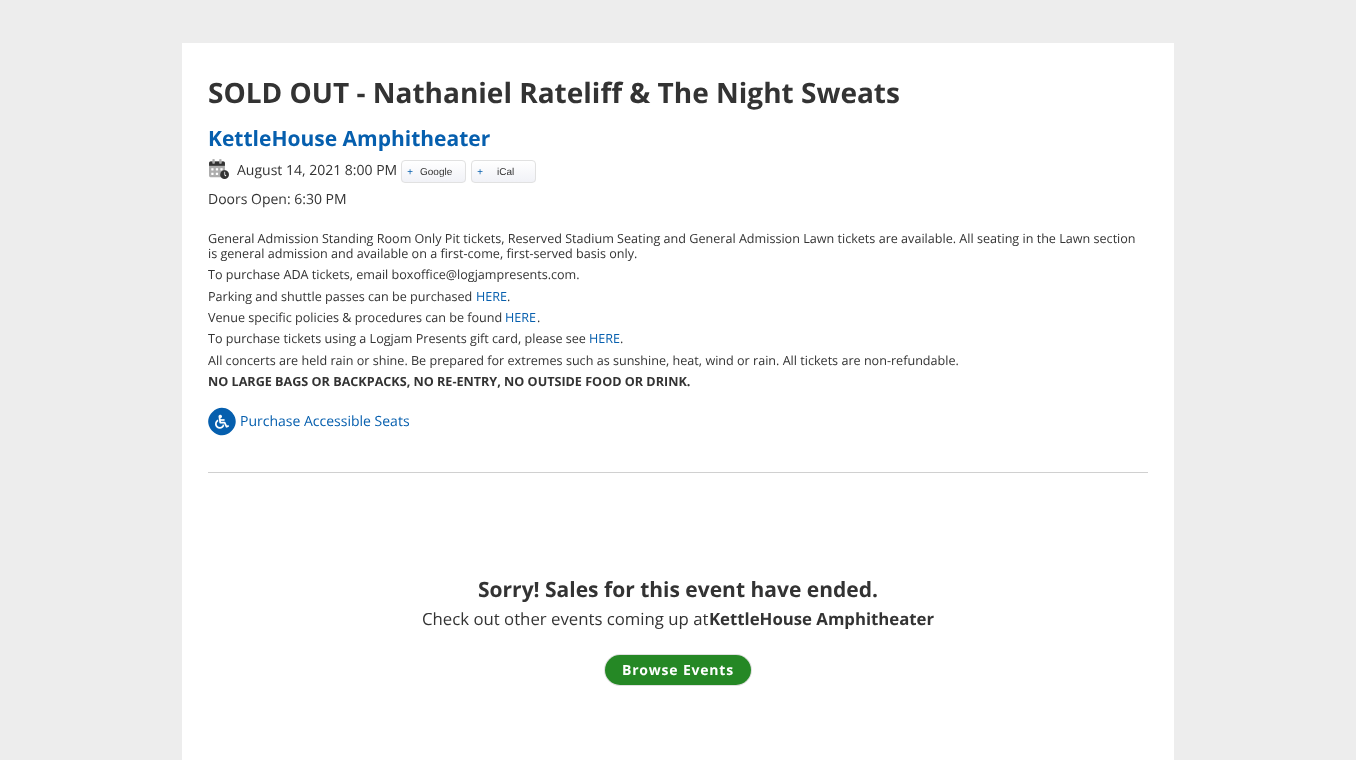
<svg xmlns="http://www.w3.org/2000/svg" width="1356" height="760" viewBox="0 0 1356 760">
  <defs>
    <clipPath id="clip1"><rect x="401" y="160" width="65" height="23" rx="4"/></clipPath>
    <linearGradient id="g1" gradientUnits="userSpaceOnUse" x1="434" y1="161" x2="434" y2="182"><stop offset="0" stop-color="rgb(255,255,255)"/><stop offset="1" stop-color="rgb(241,242,247)"/></linearGradient>
    <clipPath id="clip2"><rect x="471" y="160" width="65" height="23" rx="4"/></clipPath>
    <linearGradient id="g2" gradientUnits="userSpaceOnUse" x1="504" y1="161" x2="504" y2="182"><stop offset="0" stop-color="rgb(255,255,255)"/><stop offset="1" stop-color="rgb(241,242,247)"/></linearGradient>
  </defs>
  <rect width="100%" height="100%" fill="rgb(237,237,237)"/>
  <rect x="182" y="43" width="992" height="717" fill="rgb(255,255,255)"/>
  <text x="208" y="103" font-family="Open Sans" font-size="28" font-weight="bold" fill="rgb(51,51,51)">SOLD OUT - Nathaniel Rateliff &amp; The Night Sweats</text>
  <text x="208" y="146" font-family="Open Sans" font-size="21" font-weight="bold" fill="rgb(6,95,174)">KettleHouse Amphitheater</text>
  <image x="209" y="161" width="16" height="5" href="pic2.png"/>
  <image x="209" y="159" width="16" height="19" href="pic1.png"/>
  <image x="220" y="170" width="9" height="9" href="pic3.png"/>
  <text x="237" y="175" font-family="Open Sans" font-size="14" fill="rgb(51,51,51)">August 14, 2021 8:00 PM</text>
  <g clip-path="url(#clip1)">
    <rect x="401" y="161" width="65" height="21" fill="url(#g1)"/>
  </g>
  <rect x="401.5" y="160.5" width="64" height="22" rx="3.5" fill="none" stroke="rgb(225,225,225)"/>
  <text x="407" y="175" font-family="Liberation Sans" font-size="10" font-style="italic" fill="rgb(6,95,174)">+</text>
  <text x="420" y="175" font-family="Liberation Sans" font-size="10" fill="rgb(51,51,51)">Google</text>
  <g clip-path="url(#clip2)">
    <rect x="471" y="161" width="65" height="21" fill="url(#g2)"/>
  </g>
  <rect x="471.5" y="160.5" width="64" height="22" rx="3.5" fill="none" stroke="rgb(225,225,225)"/>
  <text x="477" y="175" font-family="Liberation Sans" font-size="10" font-style="italic" fill="rgb(6,95,174)">+</text>
  <text x="497" y="175" font-family="Liberation Sans" font-size="10" fill="rgb(51,51,51)">iCal</text>
  <text x="208" y="204" font-family="Open Sans" font-size="14" fill="rgb(51,51,51)">Doors Open: 6:30 PM</text>
  <g font-family="Open Sans" font-size="12.6" fill="rgb(51,51,51)">
    <text>
      <tspan x="208" y="243">General Admission Standing Room Only Pit tickets, Reserved Stadium Seating and General Admission Lawn tickets are available. All seating in the Lawn section</tspan>
      <tspan x="208" y="258">is general admission and available on a first-come, first-served basis only.</tspan>
      <tspan x="208" y="279">To purchase ADA tickets, email boxoffice@logjampresents.com.</tspan>
      <tspan x="208" y="301">Parking and shuttle passes can be purchased</tspan>
    </text>
  </g>
  <text x="476" y="301" font-family="Open Sans" font-size="12.6" fill="rgb(6,95,174)">HERE</text>
  <g font-family="Open Sans" font-size="12.6" fill="rgb(51,51,51)">
    <text x="507" y="301">.</text>
    <text x="208" y="322">Venue specific policies &amp; procedures can be found</text>
  </g>
  <text x="505" y="322" font-family="Open Sans" font-size="12.6" fill="rgb(6,95,174)">HERE</text>
  <g font-family="Open Sans" font-size="12.6" fill="rgb(51,51,51)">
    <text x="537" y="322">.</text>
    <text x="208" y="343">To purchase tickets using a Logjam Presents gift card, please see</text>
  </g>
  <text x="589" y="343" font-family="Open Sans" font-size="12.6" fill="rgb(6,95,174)">HERE</text>
  <g font-family="Open Sans" font-size="12.6" fill="rgb(51,51,51)">
    <text x="620" y="343">.</text>
    <text x="208" y="365">All concerts are held rain or shine. Be prepared for extremes such as sunshine, heat, wind or rain. All tickets are non-refundable.</text>
  </g>
  <text x="208" y="386" font-family="Open Sans" font-size="12.6" font-weight="bold" fill="rgb(51,51,51)">NO LARGE BAGS OR BACKPACKS, NO RE-ENTRY, NO OUTSIDE FOOD OR DRINK.</text>
  <path d="M212.5 412C225 399 244.5 418.5 231.5 431C219 444 199.5 424.5 212.5 412Z" fill="rgb(6,95,174)"/>
  <image x="215" y="414" width="14" height="15" href="pic4.png"/>
  <text x="240" y="426" font-family="Open Sans" font-size="14" fill="rgb(6,95,174)">Purchase Accessible Seats</text>
  <rect x="208" y="472" width="940" height="1" fill="rgb(208,208,208)"/>
  <text x="478" y="597" font-family="Open Sans" font-size="21" font-weight="bold" fill="rgb(51,51,51)">Sorry! Sales for this event have ended.</text>
  <text x="422" y="625" font-family="Open Sans" font-size="16.75" fill="rgb(51,51,51)">Check out other events coming up at</text>
  <text x="709" y="625" font-family="Open Sans" font-size="16.75" font-weight="bold" fill="rgb(51,51,51)">KettleHouse Amphitheater</text>
  <rect x="604" y="654" width="148" height="32" rx="16" fill="rgb(224,224,224)" filter="blur(0.5px)"/>
  <rect x="605" y="655" width="146" height="30" rx="15" fill="rgb(37,136,37)"/>
  <text x="622" y="675" font-family="Open Sans" font-size="14" font-weight="bold" letter-spacing="0.8" fill="rgb(255,255,255)">Browse Events</text>
</svg>
